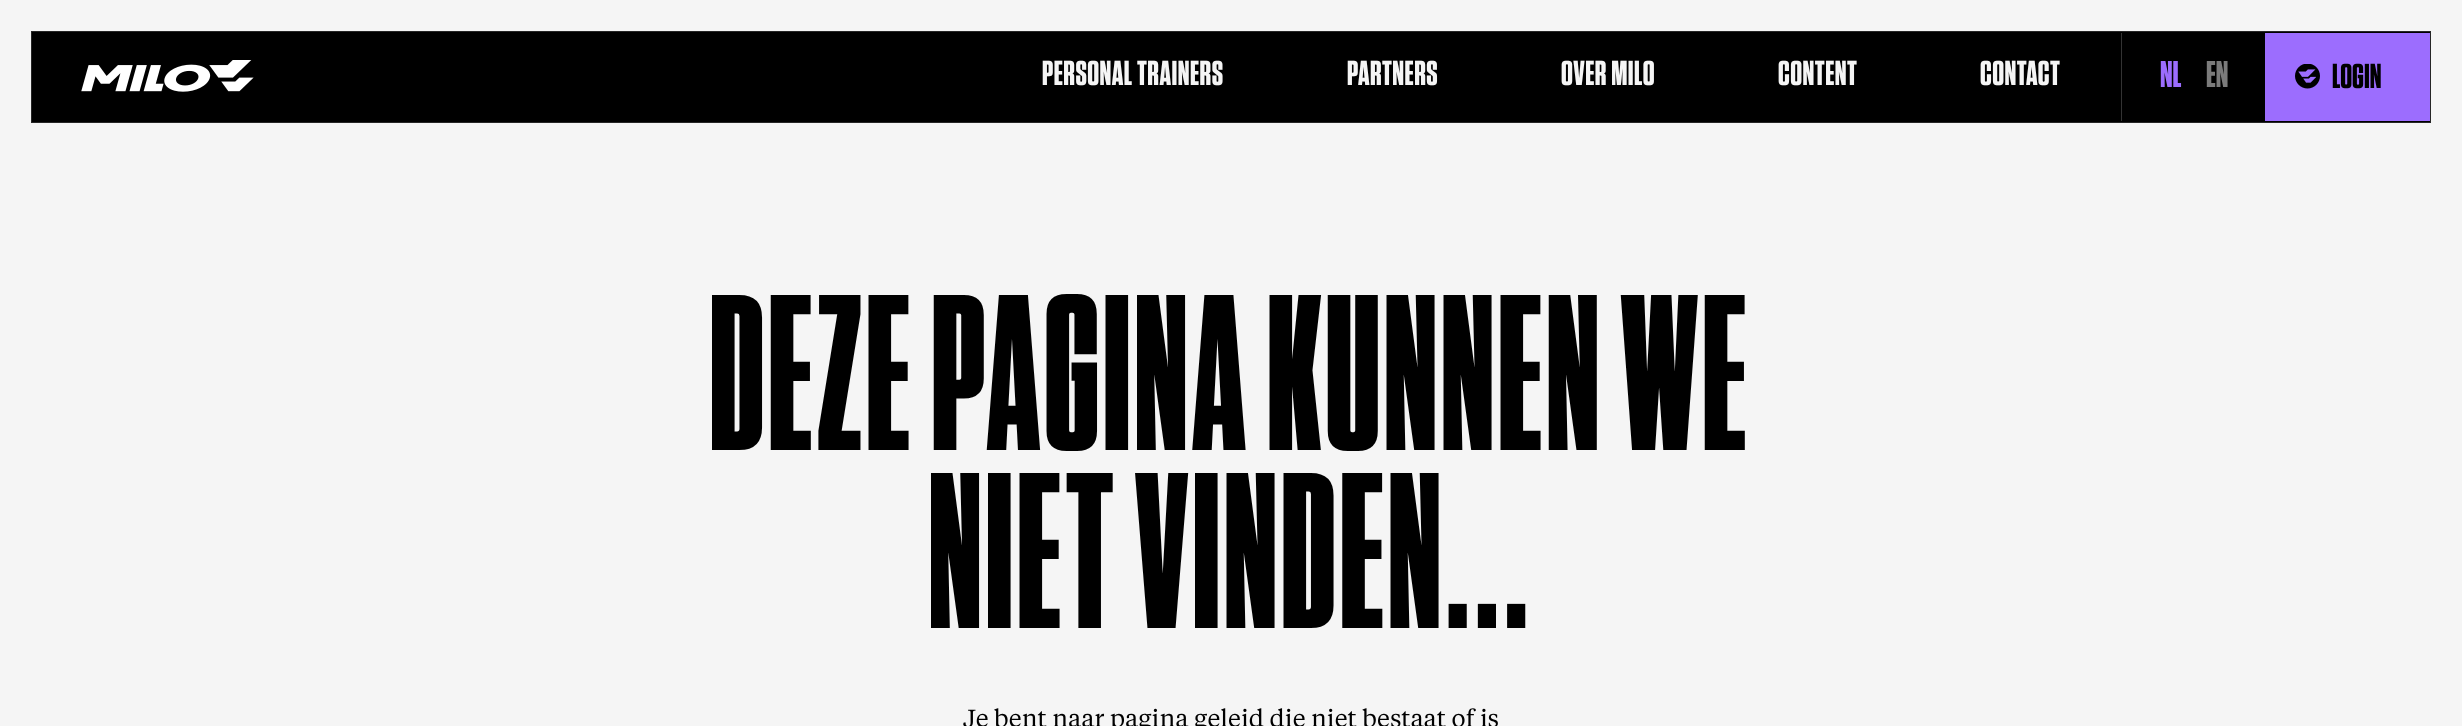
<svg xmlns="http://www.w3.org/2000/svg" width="2462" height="726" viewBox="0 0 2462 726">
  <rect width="100%" height="100%" fill="rgb(245,245,245)"/>
  <rect x="31.5" y="31.5" width="2399" height="91" fill="rgb(0,0,0)" stroke="rgb(38,38,38)"/>
  <image x="81" y="60" width="173" height="32" href="pic1.png"/>
  <g font-family="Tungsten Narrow" font-size="34.5" font-weight="bold" letter-spacing="0.5" fill="rgb(245,245,245)">
    <text x="1042" y="85">PERSONAL TRAINERS</text>
    <text x="1347" y="85">PARTNERS</text>
    <text x="1561" y="85">OVER MILO</text>
    <text x="1778" y="85">CONTENT</text>
    <text x="1980" y="85">CONTACT</text>
  </g>
  <rect x="2121" y="33" width="1" height="88" fill="rgb(51,51,51)"/>
  <text x="2160" y="87" font-family="Tungsten Narrow" font-size="37" font-weight="bold" fill="rgb(156,109,254)">NL</text>
  <text x="2206" y="87" font-family="Tungsten Narrow" font-size="37" font-weight="bold" fill="rgb(123,123,123)">EN</text>
  <rect x="2265" y="33" width="165" height="88" fill="rgb(156,109,254)"/>
  <image x="2295" y="64" width="25" height="25" href="pic2.png"/>
  <text x="2332" y="88" font-family="Tungsten Narrow" font-size="34.5" font-weight="bold" fill="rgb(0,0,0)">LOGIN</text>
  <g font-family="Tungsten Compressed" font-size="221.5" font-weight="900" letter-spacing="4.9" fill="rgb(0,0,0)">
    <text x="710" y="450">DEZE PAGINA KUNNEN WE</text>
    <text x="929" y="628">NIET VINDEN...</text>
  </g>
  <text x="963" y="727" font-family="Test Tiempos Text" font-size="24.6" fill="rgb(0,0,0)">Je bent naar pagina geleid die niet bestaat of is</text>
</svg>
